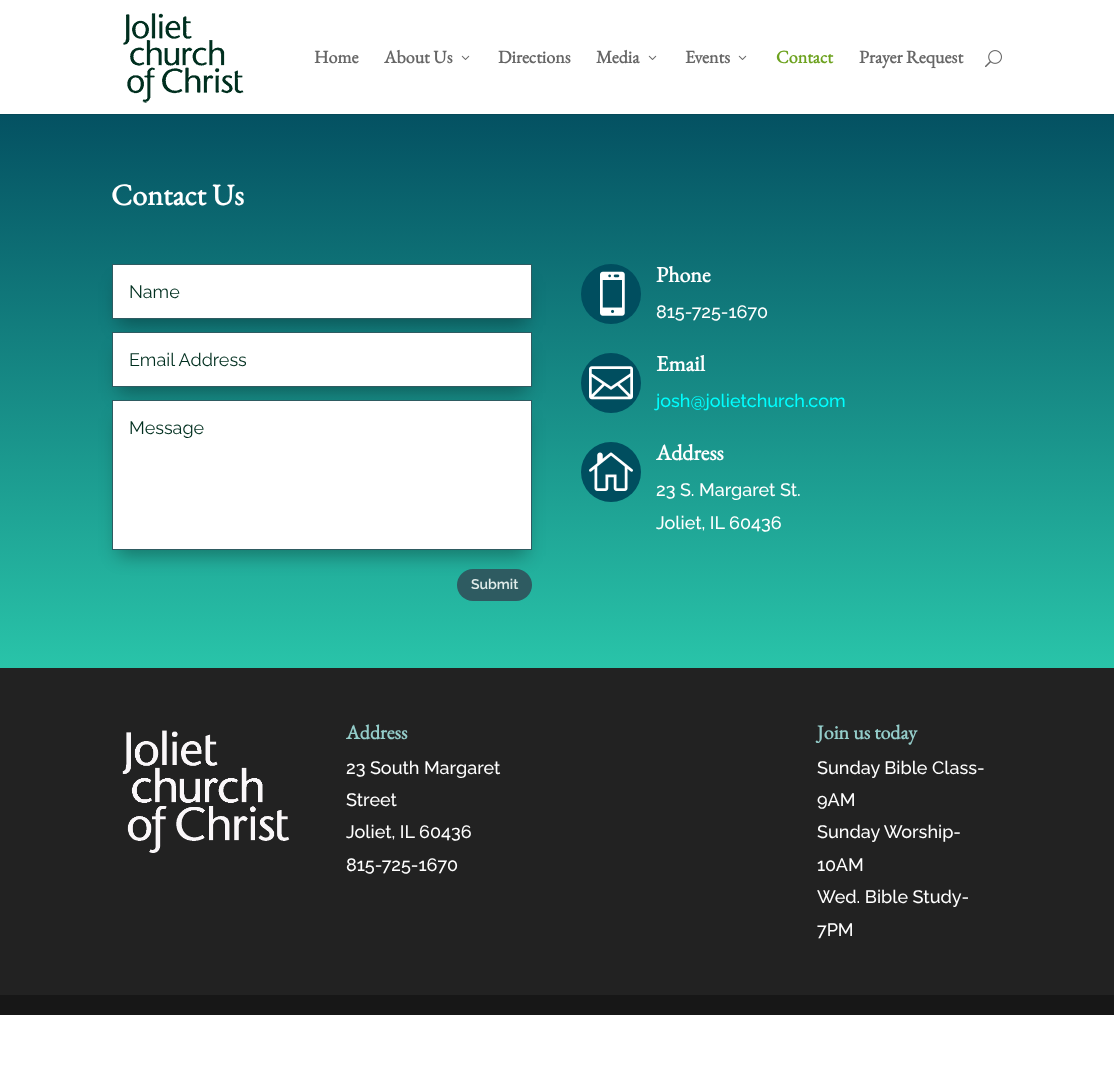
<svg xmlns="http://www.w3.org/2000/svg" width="1114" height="1088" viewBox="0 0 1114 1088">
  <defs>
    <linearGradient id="g1" gradientUnits="userSpaceOnUse" x1="557" y1="113" x2="557" y2="668"><stop offset="0" stop-color="rgb(4,81,98)"/><stop offset="1" stop-color="rgb(41,196,169)"/></linearGradient>
  </defs>
  <rect width="100%" height="100%" fill="rgb(255,255,255)"/>
  <rect x="0" y="114" width="1114" height="1" fill="rgb(4,73,88)"/>
  <image x="123" y="13" width="121" height="90" href="pic1.png"/>
  <g font-family="EB Garamond" font-size="18" font-weight="bold" fill="rgb(102,102,102)">
    <text x="314" y="63">Home</text>
    <text x="384" y="63">About Us</text>
  </g>
  <image x="461" y="55" width="9" height="5" href="pic2.png"/>
  <g font-family="EB Garamond" font-size="18" font-weight="bold" fill="rgb(102,102,102)">
    <text x="498" y="63">Directions</text>
    <text x="596" y="63">Media</text>
  </g>
  <image x="648" y="55" width="9" height="5" href="pic2.png"/>
  <text x="685" y="63" font-family="EB Garamond" font-size="18" font-weight="bold" fill="rgb(102,102,102)">Events</text>
  <image x="738" y="55" width="9" height="5" href="pic2.png"/>
  <text x="776" y="63" font-family="EB Garamond" font-size="18" font-weight="bold" fill="rgb(109,162,31)">Contact</text>
  <text x="859" y="63" font-family="EB Garamond" font-size="18" font-weight="bold" fill="rgb(102,102,102)">Prayer Request</text>
  <image x="985" y="50" width="17" height="18" href="pic3.png"/>
  <rect x="0" y="115" width="1114" height="553" fill="url(#g1)"/>
  <text x="111" y="205" font-family="EB Garamond" font-size="30" font-weight="bold" fill="rgb(255,255,255)">Contact Us</text>
  <rect x="118" y="282" width="408" height="43" fill="rgba(0,0,0,0.3)" filter="blur(9px)"/>
  <rect x="112.5" y="264.5" width="419" height="54" fill="rgb(255,255,255)" stroke="rgb(46,91,97)"/>
  <text x="129" y="298" font-family="Raleway" font-size="18" fill="rgb(0,47,31)">Name</text>
  <rect x="118" y="350" width="408" height="43" fill="rgba(0,0,0,0.3)" filter="blur(9px)"/>
  <rect x="112.5" y="332.5" width="419" height="54" fill="rgb(255,255,255)" stroke="rgb(46,91,97)"/>
  <text x="129" y="366" font-family="Raleway" font-size="18" fill="rgb(0,47,31)">Email Address</text>
  <rect x="118" y="418" width="408" height="138" fill="rgba(0,0,0,0.3)" filter="blur(9px)"/>
  <rect x="112.5" y="400.5" width="419" height="149" fill="rgb(255,255,255)" stroke="rgb(46,91,97)"/>
  <text x="129" y="434" font-family="Raleway" font-size="18" fill="rgb(0,47,31)">Message</text>
  <rect x="457" y="569" width="75" height="32" rx="16" fill="rgb(46,91,97)"/>
  <text x="471" y="589" font-family="Raleway" font-size="14" font-weight="600" fill="rgb(225,236,234)">Submit</text>
  <circle cx="611" cy="294" r="30" fill="rgb(0,78,95)"/>
  <image x="600" y="271" width="25" height="45" href="pic4.png"/>
  <text x="656" y="282" font-family="EB Garamond" font-size="22" font-weight="bold" fill="rgb(255,255,255)">Phone</text>
  <text x="656" y="318" font-family="Raleway" font-size="18" font-weight="500" fill="rgb(255,255,255)">815-725-1670</text>
  <circle cx="611" cy="383" r="30" fill="rgb(0,78,95)"/>
  <image x="589" y="366" width="44" height="34" href="pic5.png"/>
  <text x="656" y="371" font-family="EB Garamond" font-size="22" font-weight="bold" fill="rgb(255,255,255)">Email</text>
  <text x="656" y="407" font-family="Raleway" font-size="18" font-weight="500" fill="rgb(0,255,255)">josh@jolietchurch.com</text>
  <circle cx="611" cy="472" r="30" fill="rgb(0,78,95)"/>
  <image x="589" y="452" width="44" height="39" href="pic6.png"/>
  <text x="656" y="460" font-family="EB Garamond" font-size="22" font-weight="bold" fill="rgb(255,255,255)">Address</text>
  <g font-family="Raleway" font-size="18" font-weight="500" fill="rgb(255,255,255)">
    <text>
      <tspan x="656" y="496">23 S. Margaret St.</tspan>
      <tspan x="656" y="529">Joliet, IL 60436</tspan>
    </text>
  </g>
  <rect x="0" y="668" width="1114" height="327" fill="rgb(34,34,34)"/>
  <image x="122" y="730" width="168" height="123" href="pic7.png"/>
  <text x="346" y="739" font-family="EB Garamond" font-size="20" font-weight="bold" fill="rgb(148,205,202)">Address</text>
  <g font-family="Raleway" font-size="18" font-weight="500" fill="rgb(255,255,255)">
    <text>
      <tspan x="346" y="774">23 South Margaret</tspan>
      <tspan x="346" y="806">Street</tspan>
      <tspan x="346" y="838">Joliet, IL 60436</tspan>
      <tspan x="346" y="871">815-725-1670</tspan>
    </text>
  </g>
  <text x="817" y="739" font-family="EB Garamond" font-size="20" font-weight="bold" fill="rgb(148,205,202)">Join us today</text>
  <g font-family="Raleway" font-size="18" font-weight="500" fill="rgb(255,255,255)">
    <text>
      <tspan x="817" y="774">Sunday Bible Class-</tspan>
      <tspan x="817" y="806">9AM</tspan>
      <tspan x="817" y="838">Sunday Worship-</tspan>
      <tspan x="817" y="871">10AM</tspan>
      <tspan x="817" y="903">Wed. Bible Study-</tspan>
      <tspan x="817" y="936">7PM</tspan>
    </text>
  </g>
  <rect x="0" y="995" width="1114" height="20" fill="rgb(23,23,23)"/>
</svg>
